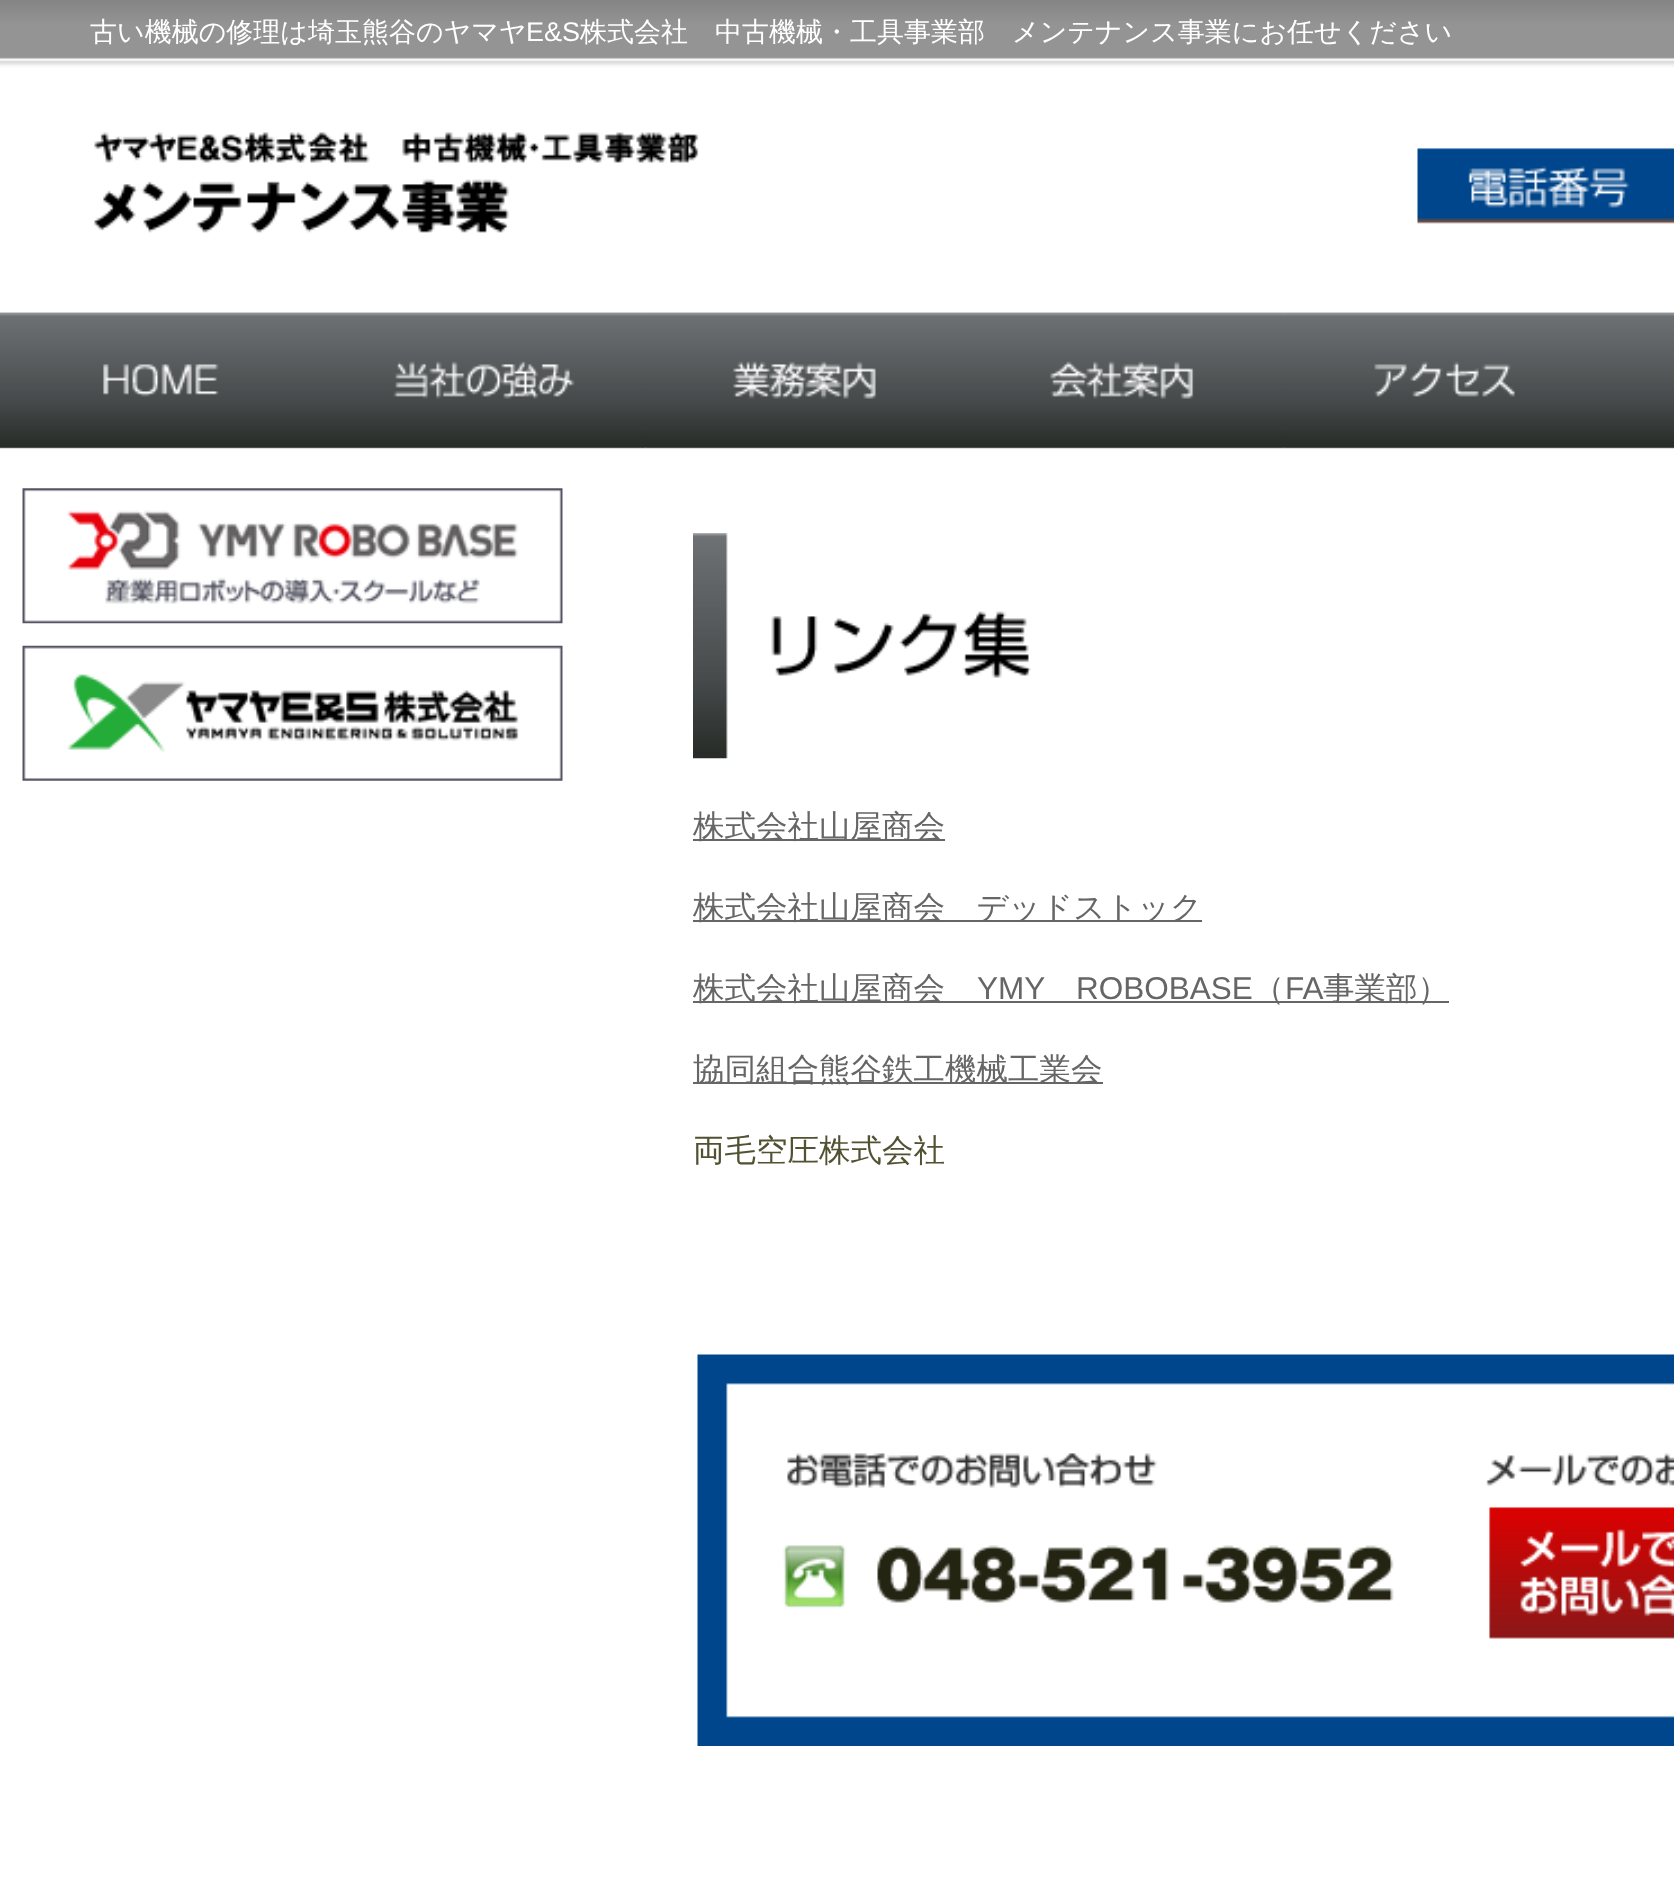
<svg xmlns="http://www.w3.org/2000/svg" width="1674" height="1886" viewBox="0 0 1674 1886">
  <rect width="100%" height="100%" fill="rgb(255,255,255)"/>
  <image x="0" y="0" width="1674" height="449" href="pic1.png"/>
  <text x="90" y="41" font-family="WenQuanYi Zen Hei" font-size="27" font-weight="500" fill="rgb(255,255,255)">古い機械の修理は埼玉熊谷のヤマヤ</text>
  <text x="526" y="41" font-family="Liberation Sans" font-size="27" fill="rgb(255,255,255)">E&amp;S</text>
  <text x="580" y="41" font-family="WenQuanYi Zen Hei" font-size="27" font-weight="500" fill="rgb(255,255,255)">株式会社　中古機械・工具事業部　メンテナンス事業にお任せください</text>
  <image x="94" y="132" width="605" height="101" href="pic2.png"/>
  <image x="1417" y="148" width="257" height="76" href="pic3.png"/>
  <image x="0" y="312" width="324" height="136" href="pic4.png"/>
  <image x="324" y="312" width="322" height="136" href="pic5.png"/>
  <image x="646" y="312" width="317" height="136" href="pic6.png"/>
  <image x="963" y="312" width="322" height="136" href="pic7.png"/>
  <image x="1285" y="312" width="317" height="136" href="pic8.png"/>
  <image x="1602" y="312" width="72" height="136" href="pic9.png"/>
  <image x="22" y="488" width="541" height="136" href="pic10.png"/>
  <image x="22" y="645" width="541" height="136" href="pic11.png"/>
  <image x="693" y="533" width="338" height="226" href="pic12.png"/>
  <rect x="693" y="839" width="252" height="2" fill="rgb(102,102,102)"/>
  <text x="693" y="837" font-family="WenQuanYi Zen Hei" font-size="31.5" font-weight="500" fill="rgb(102,102,102)">株式会社山屋商会</text>
  <rect x="693" y="920" width="509" height="2" fill="rgb(102,102,102)"/>
  <text x="693" y="918" font-family="WenQuanYi Zen Hei" font-size="31.5" font-weight="500" fill="rgb(102,102,102)">株式会社山屋商会　デッドストック</text>
  <rect x="693" y="1001" width="756" height="2" fill="rgb(102,102,102)"/>
  <text x="693" y="999" font-family="WenQuanYi Zen Hei" font-size="31.5" font-weight="500" fill="rgb(102,102,102)">株式会社山屋商会</text>
  <g font-family="Liberation Sans" font-size="31.5" fill="rgb(102,102,102)">
    <text x="977" y="999">YMY</text>
    <text x="1076" y="999">ROBOBASE</text>
  </g>
  <text x="1253" y="999" font-family="WenQuanYi Zen Hei" font-size="31.5" font-weight="500" fill="rgb(102,102,102)">（</text>
  <text x="1285" y="999" font-family="Liberation Sans" font-size="31.5" fill="rgb(102,102,102)">FA</text>
  <text x="1323" y="999" font-family="WenQuanYi Zen Hei" font-size="31.5" font-weight="500" fill="rgb(102,102,102)">事業部）</text>
  <rect x="693" y="1082" width="410" height="2" fill="rgb(102,102,102)"/>
  <text x="693" y="1080" font-family="WenQuanYi Zen Hei" font-size="31.5" font-weight="500" fill="rgb(102,102,102)">協同組合熊谷鉄工機械工業会</text>
  <text x="693" y="1161" font-family="WenQuanYi Zen Hei" font-size="31.5" font-weight="500" fill="rgb(82,82,51)">両毛空圧株式会社</text>
  <image x="697" y="1354" width="977" height="392" href="pic13.png"/>
  <image x="1489" y="1507" width="185" height="132" href="pic14.png"/>
</svg>
